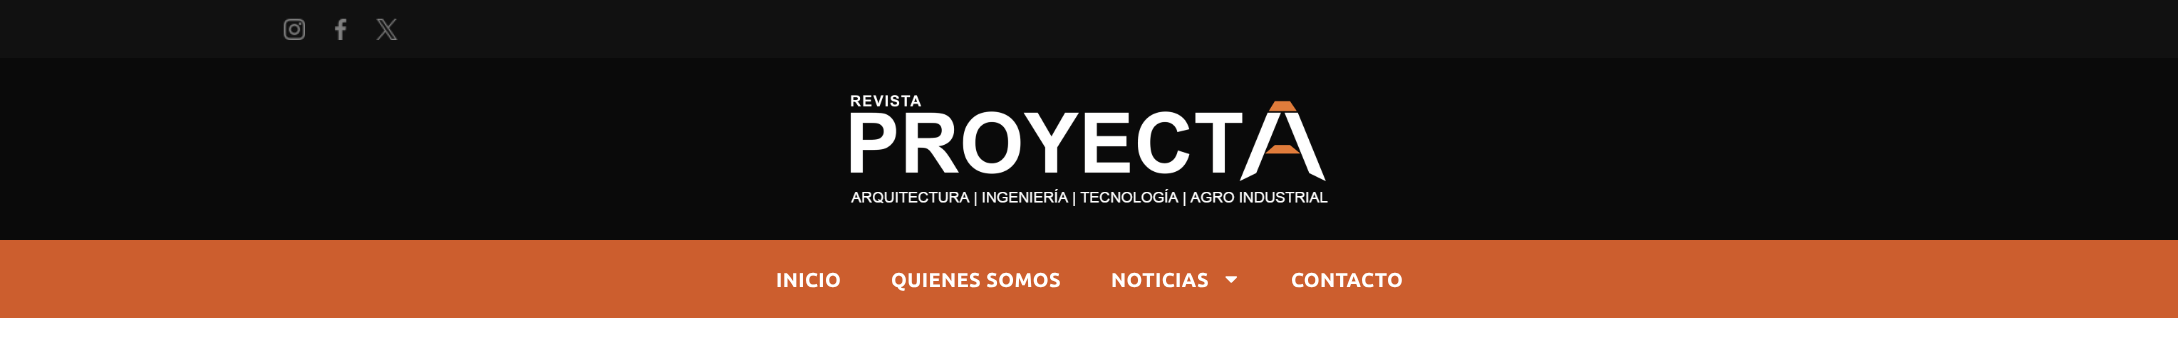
<svg xmlns="http://www.w3.org/2000/svg" width="2178" height="339" viewBox="0 0 2178 339">
  <rect width="100%" height="100%" fill="rgb(255,255,255)"/>
  <rect x="0" y="0" width="2178" height="58" fill="rgb(17,17,17)"/>
  <image x="283" y="18" width="22" height="22" href="pic1.png"/>
  <image x="334" y="18" width="13" height="22" href="pic2.png"/>
  <image x="376" y="18" width="22" height="22" href="pic3.png"/>
  <rect x="0" y="58" width="2178" height="182" fill="rgb(10,10,10)"/>
  <image x="850" y="95" width="478" height="111" href="pic4.png"/>
  <rect x="0" y="240" width="2178" height="78" fill="rgb(204,94,46)"/>
  <g font-family="Ubuntu" font-size="20" font-weight="bold" letter-spacing="0.4" fill="rgb(255,255,255)">
    <text x="776" y="287">INICIO</text>
    <text x="891" y="287">QUIENES SOMOS</text>
    <text x="1111" y="287">NOTICIAS</text>
  </g>
  <image x="1225" y="276" width="12" height="7" href="pic5.png"/>
  <text x="1291" y="287" font-family="Ubuntu" font-size="20" font-weight="bold" letter-spacing="0.4" fill="rgb(255,255,255)">CONTACTO</text>
</svg>
